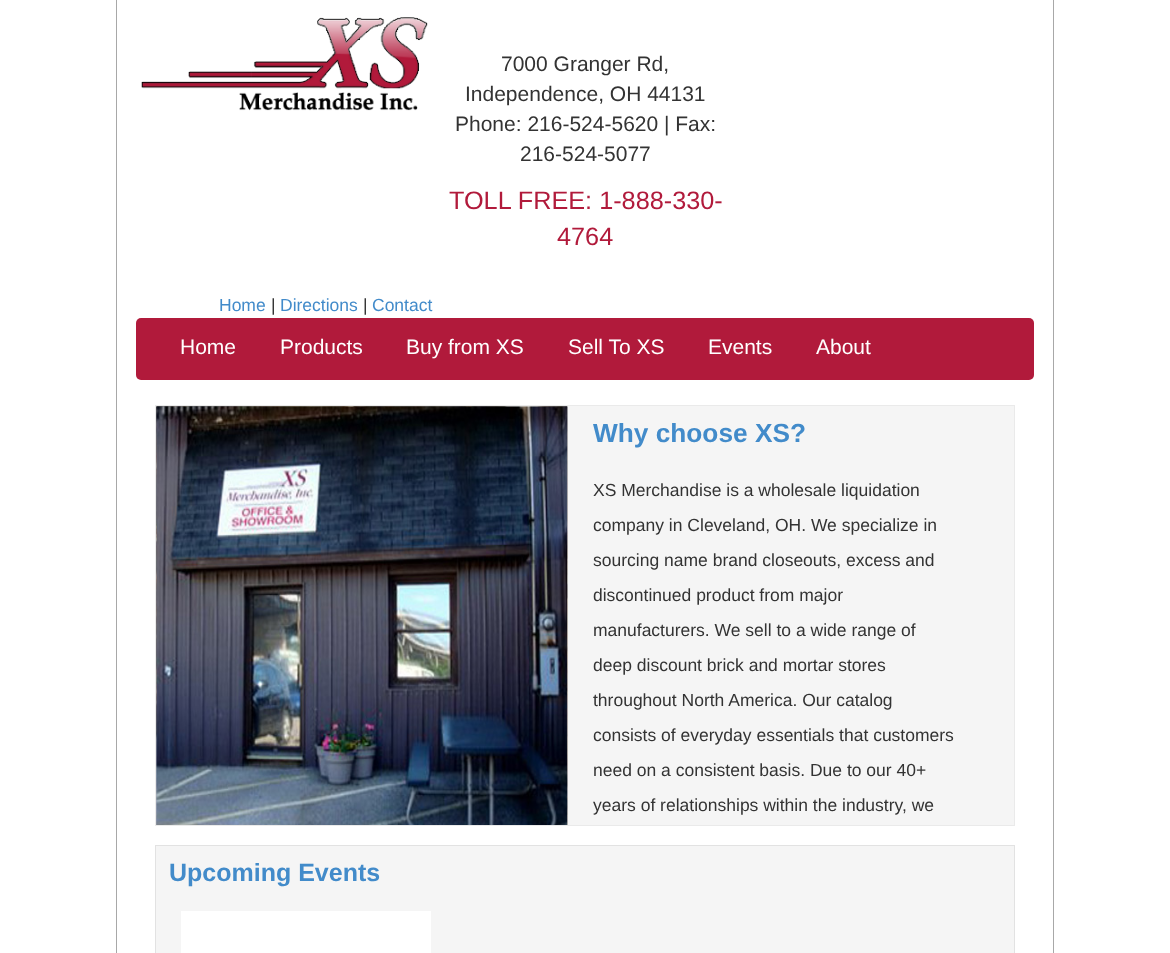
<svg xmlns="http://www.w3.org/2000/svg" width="1170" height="953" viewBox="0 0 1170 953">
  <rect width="100%" height="100%" fill="rgb(255,255,255)"/>
  <rect x="1053" y="0" width="1" height="953" fill="rgb(168,168,168)"/>
  <rect x="116" y="0" width="1" height="953" fill="rgb(168,168,168)"/>
  <image x="141" y="17" width="287" height="94" href="pic1.png"/>
  <g font-family="Liberation Sans" font-size="21" fill="rgb(51,51,51)">
    <text x="501" y="71">7000 Granger Rd,</text>
    <text x="465" y="101">Independence, OH 44131</text>
    <text x="455" y="131">Phone: 216-524-5620 | Fax:</text>
    <text x="520" y="161">216-524-5077</text>
  </g>
  <g font-family="Liberation Sans" font-size="25.25" fill="rgb(177,26,59)">
    <text x="449" y="209">TOLL FREE: 1-888-330-</text>
    <text x="557" y="245">4764</text>
  </g>
  <text x="219" y="311" font-family="Liberation Sans" font-size="17.5" fill="rgb(66,139,202)">Home</text>
  <text x="271" y="311" font-family="Liberation Sans" font-size="17.5" fill="rgb(51,51,51)">|</text>
  <text x="280" y="311" font-family="Liberation Sans" font-size="17.5" fill="rgb(66,139,202)">Directions</text>
  <text x="363" y="311" font-family="Liberation Sans" font-size="17.5" fill="rgb(51,51,51)">|</text>
  <text x="372" y="311" font-family="Liberation Sans" font-size="17.5" fill="rgb(66,139,202)">Contact</text>
  <rect x="136" y="318" width="898" height="62" rx="5" fill="rgb(177,26,59)"/>
  <g font-family="Liberation Sans" font-size="21" fill="rgb(255,255,255)">
    <text x="180" y="354">Home</text>
    <text x="280" y="354">Products</text>
    <text x="406" y="354">Buy from XS</text>
    <text x="568" y="354">Sell To XS</text>
    <text x="708" y="354">Events</text>
    <text x="816" y="354">About</text>
  </g>
  <rect x="155.5" y="405.5" width="859" height="420" fill="rgb(245,245,245)" stroke="rgb(234,234,234)"/>
  <image x="156" y="406" width="412" height="419" href="pic2.png"/>
  <image x="156" y="406" width="412" height="419" href="pic3.png"/>
  <text x="593" y="442" font-family="Liberation Sans" font-size="26.25" font-weight="bold" fill="rgb(66,139,202)">Why choose XS?</text>
  <g font-family="Liberation Sans" font-size="17.5" fill="rgb(51,51,51)">
    <text x="593" y="496">XS Merchandise is a wholesale liquidation</text>
    <text x="593" y="531">company in Cleveland, OH. We specialize in</text>
    <text x="593" y="566">sourcing name brand closeouts, excess and</text>
    <text x="593" y="601">discontinued product from major</text>
    <text x="593" y="636">manufacturers. We sell to a wide range of</text>
    <text x="593" y="671">deep discount brick and mortar stores</text>
    <text x="593" y="706">throughout North America. Our catalog</text>
    <text x="593" y="741">consists of everyday essentials that customers</text>
    <text x="593" y="776">need on a consistent basis. Due to our 40+</text>
    <text x="593" y="811">years of relationships within the industry, we</text>
  </g>
  <rect x="155.5" y="845.5" width="859" height="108" fill="rgb(245,245,245)" stroke="rgb(226,226,226)"/>
  <text x="169" y="881" font-family="Liberation Sans" font-size="25" font-weight="bold" fill="rgb(66,139,202)">Upcoming Events</text>
  <rect x="181" y="911" width="250" height="42" fill="rgb(255,255,255)"/>
</svg>
